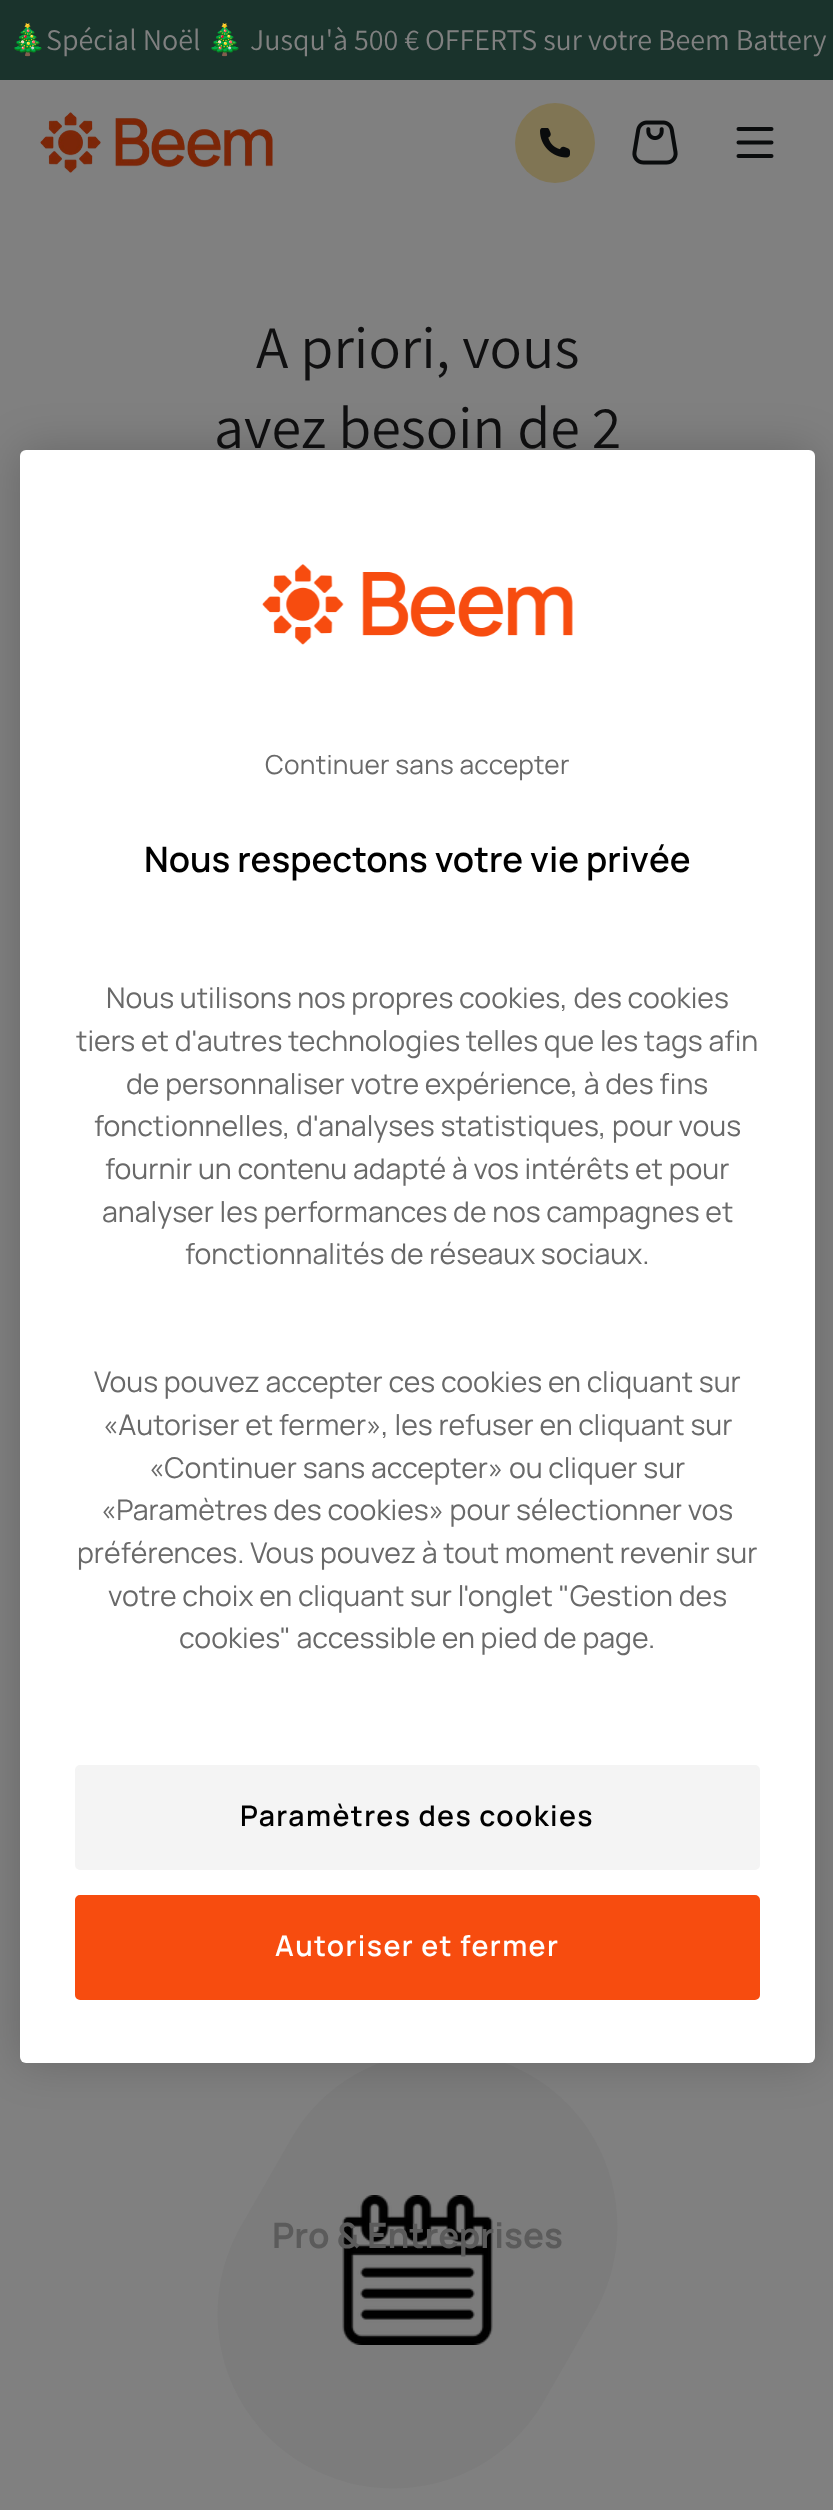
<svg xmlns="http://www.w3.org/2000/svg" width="833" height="2510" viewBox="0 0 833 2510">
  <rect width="100%" height="100%" fill="rgb(128,128,128)"/>
  <rect x="0" y="0" width="833" height="80" fill="rgb(26,51,44)"/>
  <text x="9" y="50" font-family="Noto Color Emoji" font-size="30" fill="rgb(128,128,128)">🎄</text>
  <text x="46" y="50" font-family="Assistant" font-size="30" fill="rgb(128,128,128)">Spécial Noël</text>
  <text x="206" y="50" font-family="Noto Color Emoji" font-size="30" fill="rgb(128,128,128)">🎄</text>
  <text x="250" y="50" font-family="Assistant" font-size="30" fill="rgb(128,128,128)">Jusqu'à 500 € OFFERTS sur votre Beem Battery</text>
  <image x="40" y="112" width="233" height="61" href="pic1.png"/>
  <circle cx="555" cy="143" r="40" fill="rgb(128,117,84)"/>
  <image x="540" y="128" width="30" height="30" href="pic2.png"/>
  <image x="632" y="120" width="46" height="45" href="pic3.png"/>
  <path d="M738.5 129H771.5M738.5 142.5H771.5M738.5 156H771.5" fill="none" stroke="rgb(10,12,13)" stroke-width="4" stroke-linecap="round"/>
  <path d="M530 2075C614 2123 642 2230 594 2314L544 2401C496 2485 389 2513 305 2465C221 2417 193 2310 241 2226L291 2139C339 2055 446 2027 530 2075Z" fill="rgb(124,124,124)"/>
  <image x="342" y="2195" width="151" height="150" href="pic4.png"/>
  <text x="272" y="2248" font-family="Manrope" font-size="35" font-weight="bold" fill="rgb(91,91,91)">Pro &amp; Entreprises</text>
  <g font-family="Assistant" font-size="60" fill="rgb(16,16,17)">
    <text x="256" y="368">A priori, vous</text>
    <text x="214" y="448">avez besoin de 2</text>
  </g>
  <rect x="20" y="450" width="795" height="1613" rx="6" fill="rgba(0,0,0,0.2)" filter="blur(22.5px)"/>
  <rect x="20" y="450" width="795" height="1613" rx="6" fill="rgb(255,255,255)"/>
  <text x="265" y="774" font-family="Manrope" font-size="26.25" letter-spacing="0.25" fill="rgb(105,105,105)">Continuer sans accepter</text>
  <image x="262" y="564" width="311" height="81" href="pic5.png"/>
  <text x="144" y="872" font-family="Manrope" font-size="35" font-weight="600" fill="rgb(0,0,0)">Nous respectons votre vie privée</text>
  <g font-family="Manrope" font-size="28.45" fill="rgb(105,105,105)">
    <text x="106" y="1008">Nous utilisons nos propres cookies, des cookies</text>
    <text x="76" y="1051">tiers et d'autres technologies telles que les tags afin</text>
    <text x="126" y="1094">de personnaliser votre expérience, à des fins</text>
    <text x="94" y="1136">fonctionnelles, d'analyses statistiques, pour vous</text>
    <text x="105" y="1179">fournir un contenu adapté à vos intérêts et pour</text>
    <text x="102" y="1222">analyser les performances de nos campagnes et</text>
    <text x="185" y="1264">fonctionnalités de réseaux sociaux.</text>
    <text x="94" y="1392">Vous pouvez accepter ces cookies en cliquant sur</text>
    <text x="103" y="1435">«Autoriser et fermer», les refuser en cliquant sur</text>
    <text x="149" y="1478">«Continuer sans accepter» ou cliquer sur</text>
    <text x="101" y="1520">«Paramètres des cookies» pour sélectionner vos</text>
    <text x="77" y="1563">préférences. Vous pouvez à tout moment revenir sur</text>
    <text x="108" y="1606">votre choix en cliquant sur l'onglet "Gestion des</text>
    <text x="179" y="1648">cookies" accessible en pied de page.</text>
  </g>
  <rect x="76.5" y="1766.5" width="682" height="102" rx="3.5" fill="rgb(244,244,244)" stroke="rgb(244,244,244)" stroke-width="3"/>
  <text x="240" y="1826" font-family="Manrope" font-size="28.45" font-weight="600" letter-spacing="1.4" fill="rgb(0,0,0)">Paramètres des cookies</text>
  <rect x="76.5" y="1896.5" width="682" height="102" rx="3.5" fill="rgb(247,76,15)" stroke="rgb(247,76,15)" stroke-width="3"/>
  <text x="275" y="1956" font-family="Manrope" font-size="28.45" font-weight="600" letter-spacing="1.4" fill="rgb(255,255,255)">Autoriser et fermer</text>
</svg>
